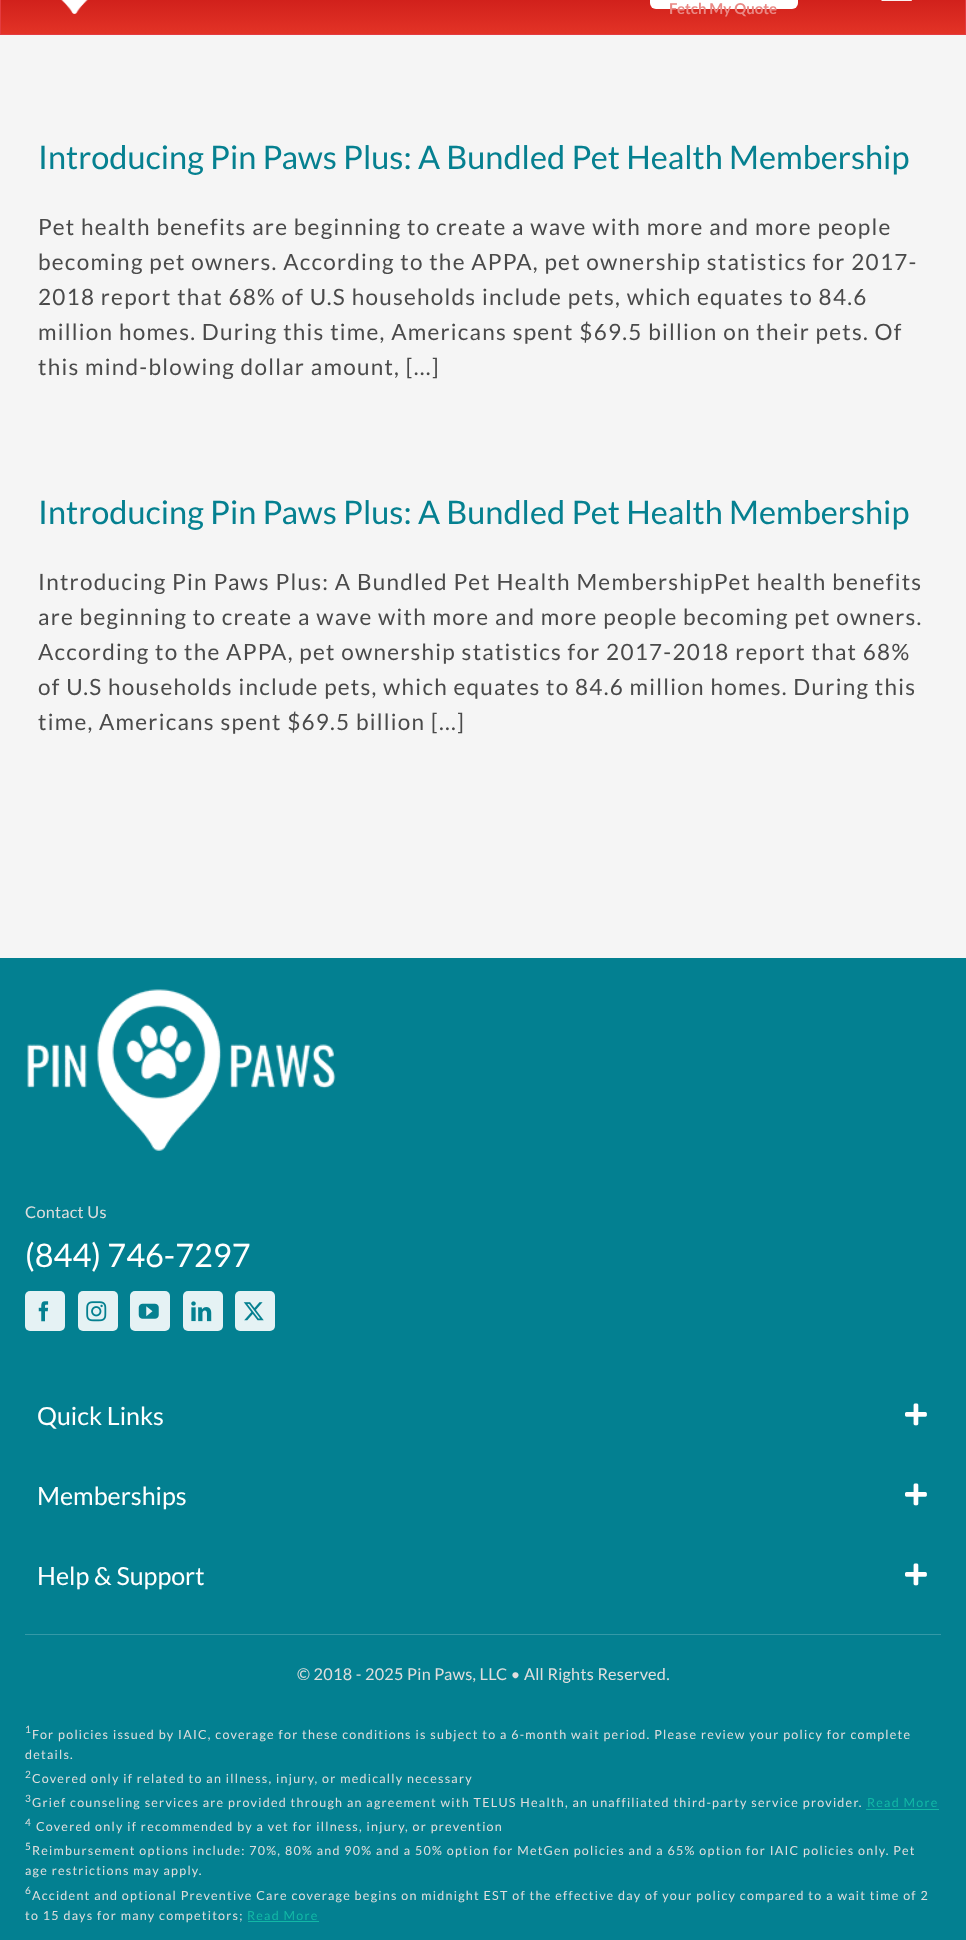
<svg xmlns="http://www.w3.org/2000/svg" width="966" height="1940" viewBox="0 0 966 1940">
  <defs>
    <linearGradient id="g1" gradientUnits="userSpaceOnUse" x1="483" y1="-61" x2="483" y2="34"><stop offset="0" stop-color="rgb(177,0,9)"/><stop offset="1" stop-color="rgb(227,51,38)"/></linearGradient>
  </defs>
  <rect width="100%" height="100%" fill="rgb(245,245,245)"/>
  <rect x="0" y="0" width="966" height="35" fill="rgb(228,59,64)"/>
  <rect x="1" y="0" width="964" height="34" fill="url(#g1)"/>
  <image x="61" y="0" width="27" height="14" href="pic1.png"/>
  <image x="881" y="0" width="31" height="1" href="pic2.png"/>
  <rect x="650" y="-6" width="148" height="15" rx="6" fill="rgb(255,255,255)"/>
  <text x="669" y="14" font-family="Lato" font-size="15" font-weight="bold" fill="rgb(233,137,133)">Fetch My Quote</text>
  <text x="38" y="169" font-family="Lato" font-size="32.5" fill="rgb(5,128,144)">Introducing Pin Paws Plus: A Bundled Pet Health Membership</text>
  <g font-family="Lato" font-size="22.5" letter-spacing="1.25" fill="rgb(74,74,74)">
    <text>
      <tspan x="38" y="235">Pet health benefits are beginning to create a wave with more and more people</tspan>
      <tspan x="38" y="270">becoming pet owners. According to the APPA, pet ownership statistics for 2017-</tspan>
      <tspan x="38" y="305">2018 report that 68% of U.S households include pets, which equates to 84.6</tspan>
      <tspan x="38" y="340">million homes. During this time, Americans spent $69.5 billion on their pets. Of</tspan>
      <tspan x="38" y="375">this mind-blowing dollar amount, [...]</tspan>
    </text>
  </g>
  <text x="38" y="524" font-family="Lato" font-size="32.5" fill="rgb(5,128,144)">Introducing Pin Paws Plus: A Bundled Pet Health Membership</text>
  <g font-family="Lato" font-size="22.5" letter-spacing="1.25" fill="rgb(74,74,74)">
    <text>
      <tspan x="38" y="590">Introducing Pin Paws Plus: A Bundled Pet Health MembershipPet health benefits</tspan>
      <tspan x="38" y="625">are beginning to create a wave with more and more people becoming pet owners.</tspan>
      <tspan x="38" y="660">According to the APPA, pet ownership statistics for 2017-2018 report that 68%</tspan>
      <tspan x="38" y="695">of U.S households include pets, which equates to 84.6 million homes. During this</tspan>
      <tspan x="38" y="730">time, Americans spent $69.5 billion [...]</tspan>
    </text>
  </g>
  <rect x="0" y="958" width="966" height="982" fill="rgb(3,128,145)"/>
  <image x="27" y="989" width="309" height="162" href="pic3.png"/>
  <text x="25" y="1218" font-family="Lato" font-size="16.25" letter-spacing="0.25" fill="rgb(224,222,222)">Contact Us</text>
  <text x="25" y="1267" font-family="Lato" font-size="32.5" fill="rgb(255,255,255)">(844) 746-7297</text>
  <rect x="25" y="1291" width="40" height="40" rx="5" fill="rgb(229,242,244)"/>
  <image x="38" y="1301" width="11" height="21" href="pic4.png"/>
  <rect x="78" y="1291" width="40" height="40" rx="5" fill="rgb(229,242,244)"/>
  <image x="86" y="1301" width="21" height="21" href="pic5.png"/>
  <rect x="130" y="1291" width="40" height="40" rx="5" fill="rgb(229,242,244)"/>
  <image x="138" y="1303" width="21" height="16" href="pic6.png"/>
  <rect x="183" y="1291" width="40" height="40" rx="5" fill="rgb(229,242,244)"/>
  <image x="191" y="1301" width="21" height="21" href="pic7.png"/>
  <rect x="235" y="1291" width="40" height="40" rx="5" fill="rgb(229,242,244)"/>
  <image x="243" y="1302" width="21" height="19" href="pic8.png"/>
  <text x="37" y="1425" font-family="Lato" font-size="25" fill="rgb(255,255,255)">Quick Links</text>
  <image x="905" y="1403" width="22" height="23" href="pic9.png"/>
  <text x="37" y="1505" font-family="Lato" font-size="25" fill="rgb(255,255,255)">Memberships</text>
  <image x="905" y="1483" width="22" height="23" href="pic9.png"/>
  <text x="37" y="1585" font-family="Lato" font-size="25" fill="rgb(255,255,255)">Help &amp; Support</text>
  <image x="905" y="1563" width="22" height="23" href="pic9.png"/>
  <rect x="25" y="1634" width="916" height="1" fill="rgb(53,153,167)"/>
  <text x="297" y="1680" font-family="Lato" font-size="16.25" letter-spacing="0.25" fill="rgb(224,222,222)">© 2018 - 2025 Pin Paws, LLC • All Rights Reserved.</text>
  <text x="25" y="1733" font-family="Lato" font-size="10" letter-spacing="1.25" fill="rgb(224,222,222)">1</text>
  <g font-family="Lato" font-size="12.5" letter-spacing="1.25" fill="rgb(224,222,222)">
    <text x="32" y="1739">For policies issued by IAIC, coverage for these conditions is subject to a 6-month wait period. Please review your policy for complete</text>
    <text x="25" y="1759">details.</text>
  </g>
  <text x="25" y="1778" font-family="Lato" font-size="10" letter-spacing="1.25" fill="rgb(224,222,222)">2</text>
  <text x="32" y="1783" font-family="Lato" font-size="12.5" letter-spacing="1.25" fill="rgb(224,222,222)">Covered only if related to an illness, injury, or medically necessary</text>
  <text x="25" y="1802" font-family="Lato" font-size="10" letter-spacing="1.25" fill="rgb(224,222,222)">3</text>
  <text x="32" y="1807" font-family="Lato" font-size="12.5" letter-spacing="1.25" fill="rgb(224,222,222)">Grief counseling services are provided through an agreement with TELUS Health, an unaffiliated third-party service provider.</text>
  <text x="867" y="1807" font-family="Lato" font-size="12.5" letter-spacing="1.25" fill="rgb(18,184,166)">Read More</text>
  <rect x="866" y="1809" width="73" height="1" fill="rgb(18,184,166)"/>
  <text x="25" y="1826" font-family="Lato" font-size="10" letter-spacing="1.25" fill="rgb(224,222,222)">4</text>
  <text x="36" y="1831" font-family="Lato" font-size="12.5" letter-spacing="1.25" fill="rgb(224,222,222)">Covered only if recommended by a vet for illness, injury, or prevention</text>
  <text x="25" y="1850" font-family="Lato" font-size="10" letter-spacing="1.25" fill="rgb(224,222,222)">5</text>
  <g font-family="Lato" font-size="12.5" letter-spacing="1.25" fill="rgb(224,222,222)">
    <text x="32" y="1855">Reimbursement options include: 70%, 80% and 90% and a 50% option for MetGen policies and a 65% option for IAIC policies only. Pet</text>
    <text x="25" y="1875">age restrictions may apply.</text>
  </g>
  <text x="25" y="1894" font-family="Lato" font-size="10" letter-spacing="1.25" fill="rgb(224,222,222)">6</text>
  <g font-family="Lato" font-size="12.5" letter-spacing="1.25" fill="rgb(224,222,222)">
    <text x="32" y="1900">Accident and optional Preventive Care coverage begins on midnight EST of the effective day of your policy compared to a wait time of 2</text>
    <text x="25" y="1920">to 15 days for many competitors;</text>
  </g>
  <text x="247" y="1920" font-family="Lato" font-size="12.5" letter-spacing="1.25" fill="rgb(18,184,166)">Read More</text>
  <rect x="248" y="1921" width="71" height="1" fill="rgb(18,184,166)"/>
</svg>
